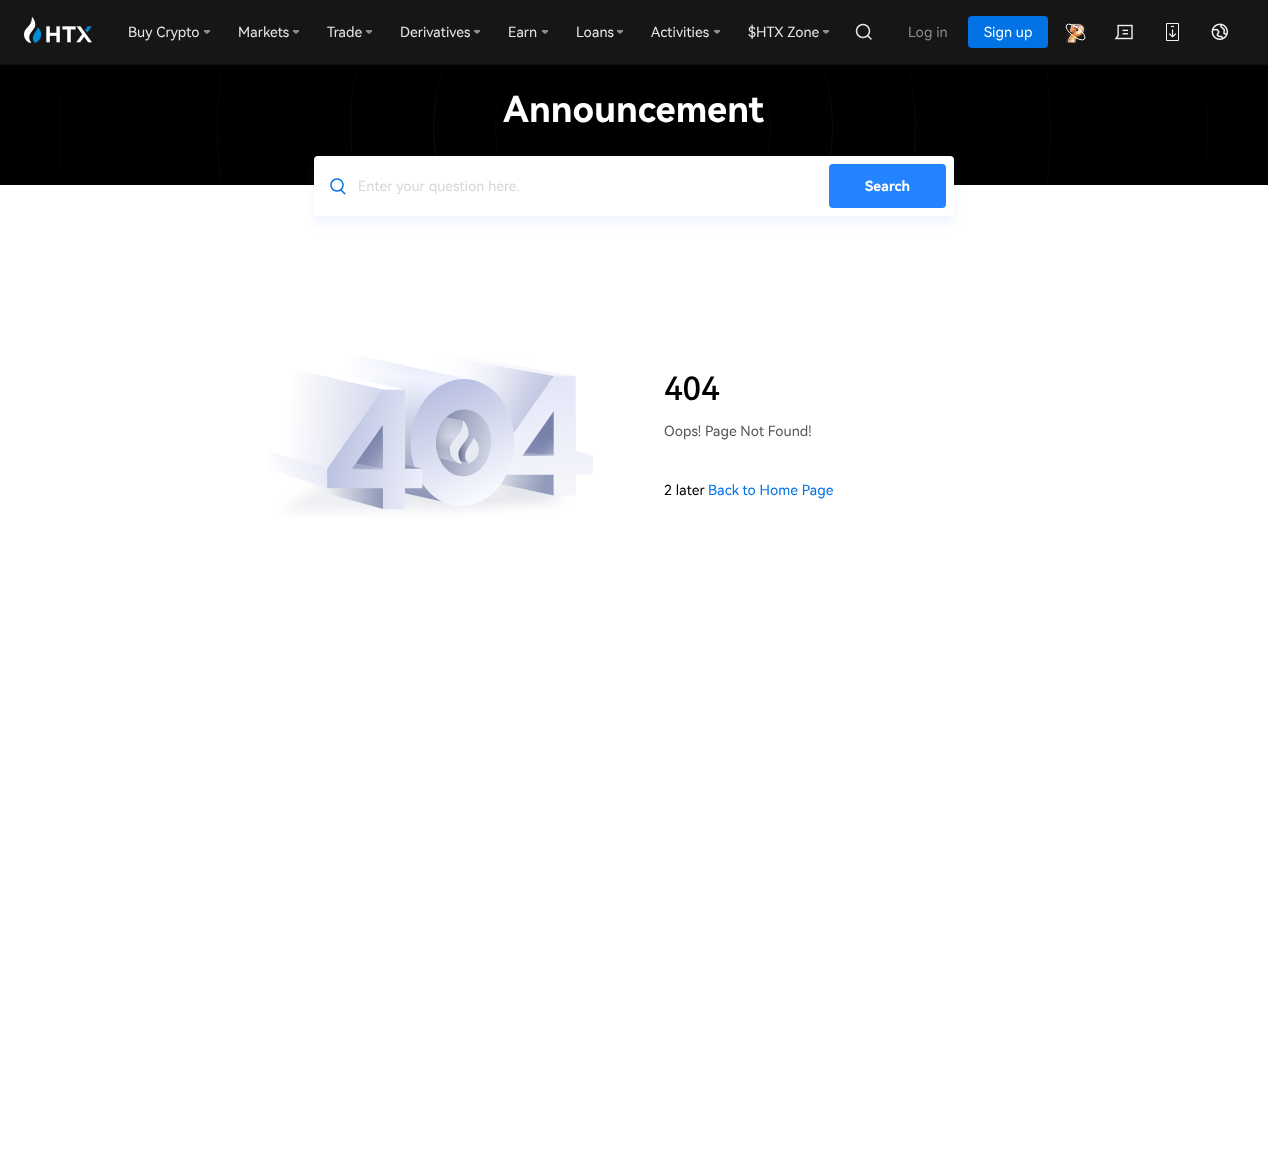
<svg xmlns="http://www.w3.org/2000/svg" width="1268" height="1167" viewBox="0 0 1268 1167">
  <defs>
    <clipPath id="clip1"><rect x="0" y="64" width="1268" height="121"/></clipPath>
    <linearGradient id="g1" gradientUnits="userSpaceOnUse" x1="633" y1="-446" x2="633" y2="702"><stop offset="0.27" stop-color="rgb(0,0,0)"/><stop offset="0.51" stop-color="rgb(5,5,5)"/></linearGradient>
    <linearGradient id="g2" gradientUnits="userSpaceOnUse" x1="634" y1="-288" x2="634" y2="545"><stop offset="0.27" stop-color="rgb(0,0,0)"/><stop offset="0.51" stop-color="rgb(8,8,8)"/></linearGradient>
    <linearGradient id="g3" gradientUnits="userSpaceOnUse" x1="633" y1="-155" x2="633" y2="410"><stop offset="0.27" stop-color="rgb(0,0,0)"/><stop offset="0.51" stop-color="rgb(10,10,10)"/></linearGradient>
    <linearGradient id="g4" gradientUnits="userSpaceOnUse" x1="633" y1="-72" x2="633" y2="327"><stop offset="0.27" stop-color="rgb(0,0,0)"/><stop offset="0.51" stop-color="rgb(13,13,13)"/></linearGradient>
    <linearGradient id="g5" gradientUnits="userSpaceOnUse" x1="633" y1="-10" x2="633" y2="265"><stop offset="0.27" stop-color="rgb(0,0,0)"/><stop offset="0.51" stop-color="rgb(8,8,8)"/></linearGradient>
    <clipPath id="clip2"><rect x="358" y="178" width="427" height="16"/></clipPath>
  </defs>
  <rect width="100%" height="100%" fill="rgb(255,255,255)"/>
  <rect x="0" y="64" width="1268" height="121" fill="rgb(0,0,0)"/>
  <image x="268" y="356" width="325" height="161" href="pic8.png"/>
  <text x="664" y="400" font-family="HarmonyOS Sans" font-size="32" font-weight="500" fill="rgb(0,0,0)">404</text>
  <text x="664" y="436" font-family="HarmonyOS Sans" font-size="14" fill="rgb(86,86,86)">Oops! Page Not Found!</text>
  <text x="664" y="495" font-family="HarmonyOS Sans" font-size="14" fill="rgb(0,0,0)">2 later</text>
  <text x="708" y="495" font-family="HarmonyOS Sans" font-size="14" fill="rgb(1,115,229)">Back to Home Page</text>
  <g clip-path="url(#clip1)">
    <circle cx="633.5" cy="128.5" r="574" fill="none" stroke="url(#g1)"/>
    <circle cx="634" cy="129" r="416.5" fill="none" stroke="url(#g2)"/>
    <circle cx="633" cy="128" r="282.5" fill="none" stroke="url(#g3)"/>
    <circle cx="633" cy="128" r="199.5" fill="none" stroke="url(#g4)"/>
    <circle cx="633" cy="128" r="137.5" fill="none" stroke="url(#g5)"/>
  </g>
  <rect x="0" y="0" width="1268" height="64" fill="rgb(22,22,22)"/>
  <image x="24" y="17" width="68" height="26" href="pic1.png"/>
  <text x="128" y="37" font-family="HarmonyOS Sans" font-size="14" fill="rgb(230,230,230)">Buy Crypto</text>
  <image x="204" y="30" width="6" height="4" href="pic2.png"/>
  <text x="238" y="37" font-family="HarmonyOS Sans" font-size="14" fill="rgb(230,230,230)">Markets</text>
  <image x="293" y="30" width="6" height="4" href="pic2.png"/>
  <text x="327" y="37" font-family="HarmonyOS Sans" font-size="14" fill="rgb(230,230,230)">Trade</text>
  <image x="366" y="30" width="6" height="4" href="pic2.png"/>
  <text x="400" y="37" font-family="HarmonyOS Sans" font-size="14" fill="rgb(230,230,230)">Derivatives</text>
  <image x="474" y="30" width="6" height="4" href="pic2.png"/>
  <text x="508" y="37" font-family="HarmonyOS Sans" font-size="14" fill="rgb(230,230,230)">Earn</text>
  <image x="542" y="30" width="6" height="4" href="pic2.png"/>
  <text x="576" y="37" font-family="HarmonyOS Sans" font-size="14" fill="rgb(230,230,230)">Loans</text>
  <image x="617" y="30" width="6" height="4" href="pic2.png"/>
  <text x="651" y="37" font-family="HarmonyOS Sans" font-size="14" fill="rgb(230,230,230)">Activities</text>
  <image x="714" y="30" width="6" height="4" href="pic2.png"/>
  <text x="748" y="37" font-family="HarmonyOS Sans" font-size="14" fill="rgb(230,230,230)">$HTX Zone</text>
  <image x="823" y="30" width="6" height="4" href="pic2.png"/>
  <circle cx="863" cy="31" r="6.5" fill="none" stroke="rgb(230,230,230)" stroke-width="1.5"/>
  <path d="M868 36L871 39" fill="none" stroke="rgb(230,230,230)" stroke-width="1.5" stroke-linecap="round"/>
  <text x="908" y="37" font-family="HarmonyOS Sans" font-size="14" fill="rgb(140,140,147)">Log in</text>
  <rect x="968" y="16" width="80" height="32" rx="4" fill="rgb(1,115,229)"/>
  <text x="984" y="37" font-family="HarmonyOS Sans" font-size="14" fill="rgb(255,255,255)">Sign up</text>
  <image x="1065" y="23" width="21" height="20" href="pic3.png"/>
  <image x="1114" y="24" width="19" height="16" href="pic4.png"/>
  <image x="1166" y="23" width="13" height="18" href="pic5.png"/>
  <image x="1211" y="23" width="17" height="17" href="pic6.png"/>
  <rect x="0" y="64" width="1268" height="1" fill="rgba(255,255,255,0.06)"/>
  <text x="503" y="122" font-family="HarmonyOS Sans" font-size="36" font-weight="bold" fill="rgb(255,255,255)">Announcement</text>
  <rect x="314" y="164" width="640" height="60" rx="4" fill="rgba(110,166,255,0.1)" filter="blur(5px)"/>
  <rect x="314" y="156" width="640" height="60" rx="4" fill="rgb(255,255,255)"/>
  <image x="330" y="178" width="16" height="17" href="pic7.png"/>
  <g clip-path="url(#clip2)">
    <text x="358" y="191" font-family="HarmonyOS Sans" font-size="14" fill="rgb(214,214,218)">Enter your question here.</text>
  </g>
  <rect x="829" y="164" width="117" height="44" rx="4" fill="rgb(36,131,255)"/>
  <text x="865" y="191" font-family="HarmonyOS Sans" font-size="14" font-weight="bold" fill="rgb(255,255,255)">Search</text>
</svg>
